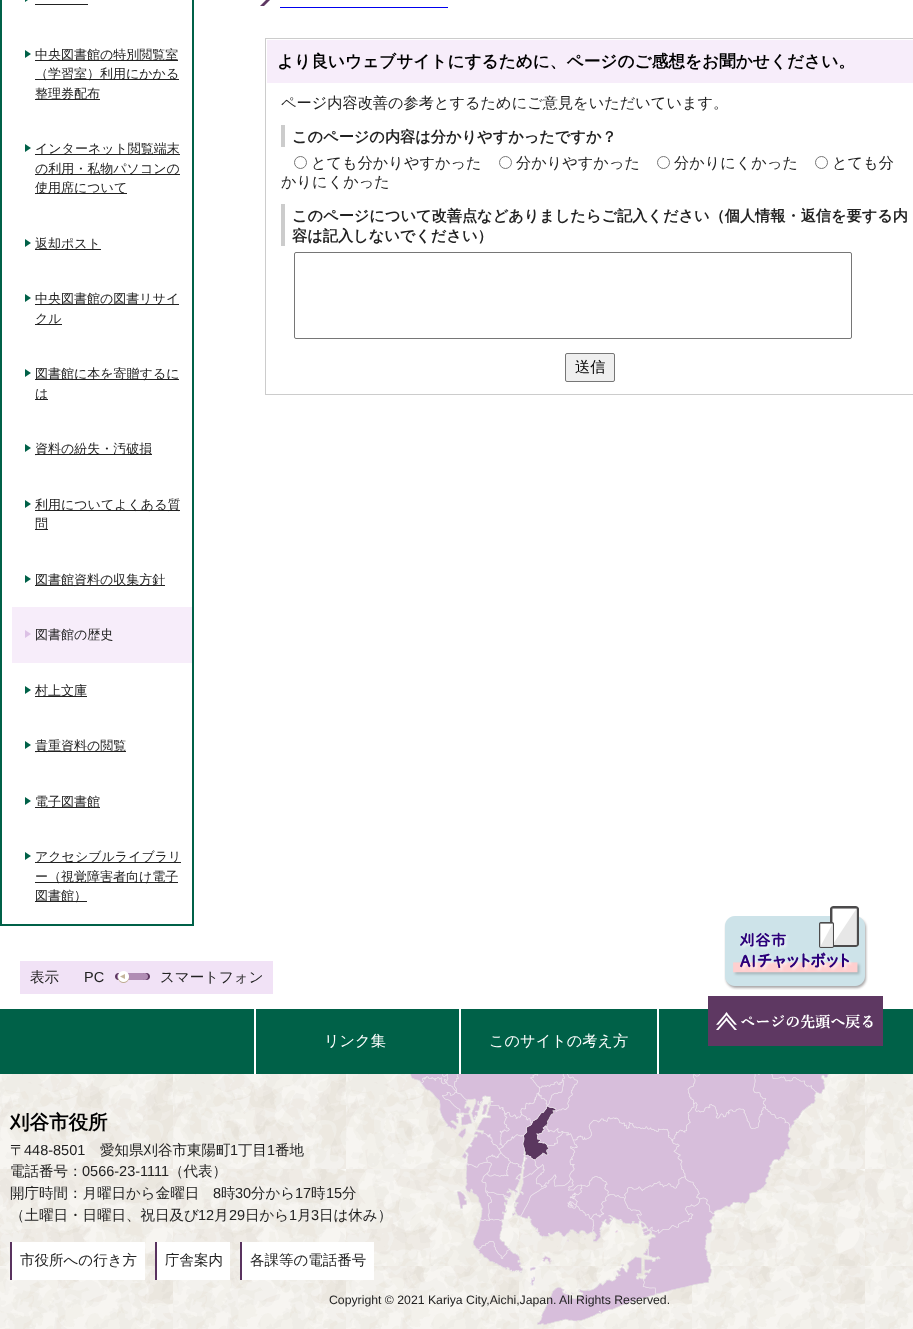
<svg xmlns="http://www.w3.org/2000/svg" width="913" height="1329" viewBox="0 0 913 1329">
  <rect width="100%" height="100%" fill="rgb(255,255,255)"/>
  <rect x="1" y="-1" width="192" height="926" fill="none" stroke="rgb(0,97,72)" stroke-width="2"/>
  <path d="M25 2V-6L31-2Z" fill="rgb(0,97,72)"/>
  <rect x="35" y="4" width="53" height="1" fill="rgb(34,34,34)"/>
  <path d="M25 58V50L31 54Z" fill="rgb(0,97,72)"/>
  <rect x="35" y="60" width="143" height="1" fill="rgb(34,34,34)"/>
  <text x="35" y="59" font-family="WenQuanYi Zen Hei" font-size="13" font-weight="500" fill="rgb(34,34,34)">中央図書館の特別閲覧室</text>
  <rect x="35" y="79" width="144" height="1" fill="rgb(34,34,34)"/>
  <text x="35" y="78" font-family="WenQuanYi Zen Hei" font-size="13" font-weight="500" fill="rgb(34,34,34)">（学習室）利用にかかる</text>
  <rect x="35" y="99" width="65" height="1" fill="rgb(34,34,34)"/>
  <text x="35" y="98" font-family="WenQuanYi Zen Hei" font-size="13" font-weight="500" fill="rgb(34,34,34)">整理券配布</text>
  <path d="M25 152V144L31 148Z" fill="rgb(0,97,72)"/>
  <rect x="35" y="154" width="145" height="1" fill="rgb(34,34,34)"/>
  <text x="35" y="153" font-family="WenQuanYi Zen Hei" font-size="13" font-weight="500" fill="rgb(34,34,34)">インターネット閲覧端末</text>
  <rect x="35" y="174" width="145" height="1" fill="rgb(34,34,34)"/>
  <text x="35" y="173" font-family="WenQuanYi Zen Hei" font-size="13" font-weight="500" fill="rgb(34,34,34)">の利用・私物パソコンの</text>
  <rect x="35" y="193" width="92" height="1" fill="rgb(34,34,34)"/>
  <text x="35" y="192" font-family="WenQuanYi Zen Hei" font-size="13" font-weight="500" fill="rgb(34,34,34)">使用席について</text>
  <path d="M25 247V239L31 243Z" fill="rgb(0,97,72)"/>
  <rect x="35" y="249" width="66" height="1" fill="rgb(34,34,34)"/>
  <text x="35" y="248" font-family="WenQuanYi Zen Hei" font-size="13" font-weight="500" fill="rgb(34,34,34)">返却ポスト</text>
  <path d="M25 302V294L31 298Z" fill="rgb(0,97,72)"/>
  <rect x="35" y="304" width="144" height="1" fill="rgb(34,34,34)"/>
  <text x="35" y="303" font-family="WenQuanYi Zen Hei" font-size="13" font-weight="500" fill="rgb(34,34,34)">中央図書館の図書リサイ</text>
  <rect x="35" y="324" width="27" height="1" fill="rgb(34,34,34)"/>
  <text x="35" y="323" font-family="WenQuanYi Zen Hei" font-size="13" font-weight="500" fill="rgb(34,34,34)">クル</text>
  <path d="M25 377V369L31 373Z" fill="rgb(0,97,72)"/>
  <rect x="35" y="379" width="144" height="1" fill="rgb(34,34,34)"/>
  <text x="35" y="378" font-family="WenQuanYi Zen Hei" font-size="13" font-weight="500" fill="rgb(34,34,34)">図書館に本を寄贈するに</text>
  <rect x="35" y="399" width="13" height="1" fill="rgb(34,34,34)"/>
  <text x="35" y="398" font-family="WenQuanYi Zen Hei" font-size="13" font-weight="500" fill="rgb(34,34,34)">は</text>
  <path d="M25 452V444L31 448Z" fill="rgb(0,97,72)"/>
  <rect x="35" y="454" width="117" height="1" fill="rgb(34,34,34)"/>
  <text x="35" y="453" font-family="WenQuanYi Zen Hei" font-size="13" font-weight="500" fill="rgb(34,34,34)">資料の紛失・汚破損</text>
  <path d="M25 508V500L31 504Z" fill="rgb(0,97,72)"/>
  <rect x="35" y="510" width="145" height="1" fill="rgb(34,34,34)"/>
  <text x="35" y="509" font-family="WenQuanYi Zen Hei" font-size="13" font-weight="500" fill="rgb(34,34,34)">利用についてよくある質</text>
  <rect x="35" y="529" width="13" height="1" fill="rgb(34,34,34)"/>
  <text x="35" y="528" font-family="WenQuanYi Zen Hei" font-size="13" font-weight="500" fill="rgb(34,34,34)">問</text>
  <path d="M25 583V575L31 579Z" fill="rgb(0,97,72)"/>
  <rect x="35" y="585" width="130" height="1" fill="rgb(34,34,34)"/>
  <text x="35" y="584" font-family="WenQuanYi Zen Hei" font-size="13" font-weight="500" fill="rgb(34,34,34)">図書館資料の収集方針</text>
  <rect x="12" y="607" width="180" height="56" fill="rgb(247,237,250)"/>
  <path d="M25 638V630L31 634Z" fill="rgb(220,193,229)"/>
  <text x="35" y="639" font-family="WenQuanYi Zen Hei" font-size="13" font-weight="500" fill="rgb(34,34,34)">図書館の歴史</text>
  <path d="M25 694V686L31 690Z" fill="rgb(0,97,72)"/>
  <rect x="35" y="696" width="52" height="1" fill="rgb(34,34,34)"/>
  <text x="35" y="695" font-family="WenQuanYi Zen Hei" font-size="13" font-weight="500" fill="rgb(34,34,34)">村上文庫</text>
  <path d="M25 749V741L31 745Z" fill="rgb(0,97,72)"/>
  <rect x="35" y="751" width="91" height="1" fill="rgb(34,34,34)"/>
  <text x="35" y="750" font-family="WenQuanYi Zen Hei" font-size="13" font-weight="500" fill="rgb(34,34,34)">貴重資料の閲覧</text>
  <path d="M25 805V797L31 801Z" fill="rgb(0,97,72)"/>
  <rect x="35" y="807" width="65" height="1" fill="rgb(34,34,34)"/>
  <text x="35" y="806" font-family="WenQuanYi Zen Hei" font-size="13" font-weight="500" fill="rgb(34,34,34)">電子図書館</text>
  <path d="M25 860V852L31 856Z" fill="rgb(0,97,72)"/>
  <rect x="35" y="862" width="146" height="1" fill="rgb(34,34,34)"/>
  <text x="35" y="861" font-family="WenQuanYi Zen Hei" font-size="13" font-weight="500" fill="rgb(34,34,34)">アクセシブルライブラリ</text>
  <rect x="35" y="882" width="143" height="1" fill="rgb(34,34,34)"/>
  <text x="35" y="881" font-family="WenQuanYi Zen Hei" font-size="13" font-weight="500" fill="rgb(34,34,34)">ー（視覚障害者向け電子</text>
  <rect x="35" y="901" width="52" height="1" fill="rgb(34,34,34)"/>
  <text x="35" y="900" font-family="WenQuanYi Zen Hei" font-size="13" font-weight="500" fill="rgb(34,34,34)">図書館）</text>
  <image x="260" y="0" width="10" height="6" href="pic1.png"/>
  <rect x="280" y="7" width="168" height="1" fill="rgb(0,0,238)"/>
  <rect x="265.5" y="38.5" width="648" height="356" fill="none" stroke="rgb(204,204,204)"/>
  <rect x="267" y="40" width="646" height="43" fill="rgb(247,237,250)"/>
  <text x="277" y="67" font-family="WenQuanYi Zen Hei" font-size="16.7" font-weight="bold" fill="rgb(0,0,0)">より良いウェブサイトにするために、ページのご感想をお聞かせください。</text>
  <text x="281" y="108" font-family="WenQuanYi Zen Hei" font-size="15.2" font-weight="500" fill="rgb(34,34,34)">ページ内容改善の参考とするためにご意見をいただいています。</text>
  <rect x="281" y="125" width="4" height="22" fill="rgb(204,204,204)"/>
  <text x="292" y="142" font-family="WenQuanYi Zen Hei" font-size="15.2" font-weight="bold" fill="rgb(34,34,34)">このページの内容は分かりやすかったですか？</text>
  <circle cx="300.5" cy="162.5" r="6" fill="none" stroke="rgb(118,118,118)"/>
  <text x="311" y="168" font-family="WenQuanYi Zen Hei" font-size="15.2" font-weight="500" fill="rgb(34,34,34)">とても分かりやすかった</text>
  <circle cx="505.5" cy="162.5" r="6" fill="none" stroke="rgb(118,118,118)"/>
  <text x="516" y="168" font-family="WenQuanYi Zen Hei" font-size="15.2" font-weight="500" fill="rgb(34,34,34)">分かりやすかった</text>
  <circle cx="663.5" cy="162.5" r="6" fill="none" stroke="rgb(118,118,118)"/>
  <text x="674" y="168" font-family="WenQuanYi Zen Hei" font-size="15.2" font-weight="500" fill="rgb(34,34,34)">分かりにくかった</text>
  <circle cx="821.5" cy="162.5" r="6" fill="none" stroke="rgb(118,118,118)"/>
  <g font-family="WenQuanYi Zen Hei" font-size="15.2" font-weight="500" fill="rgb(34,34,34)">
    <text x="832" y="168">とても分</text>
    <text x="281" y="187">かりにくかった</text>
  </g>
  <rect x="281" y="204" width="4" height="42" fill="rgb(204,204,204)"/>
  <g font-family="WenQuanYi Zen Hei" font-size="15.2" font-weight="bold" fill="rgb(34,34,34)">
    <text>
      <tspan x="292" y="221">このページについて改善点などありましたらご記入ください（個人情報・返信を要する内</tspan>
      <tspan x="292" y="241">容は記入しないでください）</tspan>
    </text>
  </g>
  <rect x="294.5" y="252.5" width="557" height="86" rx="1.5" fill="none" stroke="rgb(118,118,118)"/>
  <rect x="565.5" y="353.5" width="49" height="28" rx="1.5" fill="rgb(239,239,239)" stroke="rgb(118,118,118)"/>
  <text x="575" y="372" font-family="WenQuanYi Zen Hei" font-size="15.2" font-weight="500" fill="rgb(0,0,0)">送信</text>
  <rect x="20" y="961" width="253" height="33" fill="rgb(241,226,246)"/>
  <text x="30" y="982" font-family="WenQuanYi Zen Hei" font-size="14.5" font-weight="500" fill="rgb(34,34,34)">表示</text>
  <image x="115" y="971" width="35" height="12" href="pic2.png"/>
  <text x="84" y="982" font-family="Liberation Sans" font-size="14.5" fill="rgb(34,34,34)">PC</text>
  <text x="160" y="982" font-family="WenQuanYi Zen Hei" font-size="14.5" font-weight="500" fill="rgb(34,34,34)">スマートフォン</text>
  <rect x="0" y="1009" width="913" height="65" fill="rgb(0,97,72)"/>
  <image x="708" y="996" width="175" height="50" href="pic3.png"/>
  <image x="724" y="906" width="144" height="84" href="pic4.png"/>
  <image x="0" y="1074" width="913" height="255" href="pic5.png"/>
  <rect x="254" y="1009" width="2" height="65" fill="rgb(255,255,255)"/>
  <text x="324" y="1046" font-family="WenQuanYi Zen Hei" font-size="15.2" font-weight="500" fill="rgb(255,255,255)">リンク集</text>
  <rect x="657" y="1009" width="2" height="65" fill="rgb(255,255,255)"/>
  <rect x="459" y="1009" width="2" height="65" fill="rgb(255,255,255)"/>
  <text x="489" y="1046" font-family="WenQuanYi Zen Hei" font-size="15.2" font-weight="500" fill="rgb(255,255,255)">このサイトの考え方</text>
  <image x="410" y="1074" width="419" height="251" href="pic6.png"/>
  <text x="10" y="1129" font-family="WenQuanYi Zen Hei" font-size="19.5" font-weight="bold" fill="rgb(0,0,0)">刈谷市役所</text>
  <text x="10" y="1155" font-family="WenQuanYi Zen Hei" font-size="14.5" font-weight="500" fill="rgb(34,34,34)">〒</text>
  <text x="24" y="1155" font-family="Liberation Sans" font-size="14.5" fill="rgb(34,34,34)">448-8501</text>
  <text x="100" y="1155" font-family="WenQuanYi Zen Hei" font-size="14.5" font-weight="500" fill="rgb(34,34,34)">愛知県刈谷市東陽町</text>
  <text x="230" y="1155" font-family="Liberation Sans" font-size="14.5" fill="rgb(34,34,34)">1</text>
  <text x="238" y="1155" font-family="WenQuanYi Zen Hei" font-size="14.5" font-weight="500" fill="rgb(34,34,34)">丁目</text>
  <text x="267" y="1155" font-family="Liberation Sans" font-size="14.5" fill="rgb(34,34,34)">1</text>
  <g font-family="WenQuanYi Zen Hei" font-size="14.5" font-weight="500" fill="rgb(34,34,34)">
    <text x="275" y="1155">番地</text>
    <text x="10" y="1176">電話番号：</text>
  </g>
  <text x="82" y="1176" font-family="Liberation Sans" font-size="14.5" fill="rgb(34,34,34)">0566-23-1111</text>
  <g font-family="WenQuanYi Zen Hei" font-size="14.5" font-weight="500" fill="rgb(34,34,34)">
    <text x="169" y="1176">（代表）</text>
    <text x="10" y="1198">開庁時間：月曜日から金曜日</text>
  </g>
  <text x="213" y="1198" font-family="Liberation Sans" font-size="14.5" fill="rgb(34,34,34)">8</text>
  <text x="221" y="1198" font-family="WenQuanYi Zen Hei" font-size="14.5" font-weight="500" fill="rgb(34,34,34)">時</text>
  <text x="235" y="1198" font-family="Liberation Sans" font-size="14.5" fill="rgb(34,34,34)">30</text>
  <text x="251" y="1198" font-family="WenQuanYi Zen Hei" font-size="14.5" font-weight="500" fill="rgb(34,34,34)">分から</text>
  <text x="295" y="1198" font-family="Liberation Sans" font-size="14.5" fill="rgb(34,34,34)">17</text>
  <text x="311" y="1198" font-family="WenQuanYi Zen Hei" font-size="14.5" font-weight="500" fill="rgb(34,34,34)">時</text>
  <text x="326" y="1198" font-family="Liberation Sans" font-size="14.5" fill="rgb(34,34,34)">15</text>
  <g font-family="WenQuanYi Zen Hei" font-size="14.5" font-weight="500" fill="rgb(34,34,34)">
    <text x="342" y="1198">分</text>
    <text x="10" y="1220">（土曜日・日曜日、祝日及び</text>
  </g>
  <text x="198" y="1220" font-family="Liberation Sans" font-size="14.5" fill="rgb(34,34,34)">12</text>
  <text x="214" y="1220" font-family="WenQuanYi Zen Hei" font-size="14.5" font-weight="500" fill="rgb(34,34,34)">月</text>
  <text x="229" y="1220" font-family="Liberation Sans" font-size="14.5" fill="rgb(34,34,34)">29</text>
  <text x="245" y="1220" font-family="WenQuanYi Zen Hei" font-size="14.5" font-weight="500" fill="rgb(34,34,34)">日から</text>
  <text x="289" y="1220" font-family="Liberation Sans" font-size="14.5" fill="rgb(34,34,34)">1</text>
  <text x="297" y="1220" font-family="WenQuanYi Zen Hei" font-size="14.5" font-weight="500" fill="rgb(34,34,34)">月</text>
  <text x="311" y="1220" font-family="Liberation Sans" font-size="14.5" fill="rgb(34,34,34)">3</text>
  <text x="319" y="1220" font-family="WenQuanYi Zen Hei" font-size="14.5" font-weight="500" fill="rgb(34,34,34)">日は休み）</text>
  <rect x="12" y="1242" width="133" height="38" fill="rgb(255,255,255)"/>
  <rect x="10" y="1242" width="2" height="38" fill="rgb(89,50,95)"/>
  <text x="20" y="1265" font-family="WenQuanYi Zen Hei" font-size="14.5" font-weight="500" fill="rgb(34,34,34)">市役所への行き方</text>
  <rect x="157" y="1242" width="73" height="38" fill="rgb(255,255,255)"/>
  <rect x="155" y="1242" width="2" height="38" fill="rgb(89,50,95)"/>
  <text x="165" y="1265" font-family="WenQuanYi Zen Hei" font-size="14.5" font-weight="500" fill="rgb(34,34,34)">庁舎案内</text>
  <rect x="242" y="1242" width="132" height="38" fill="rgb(255,255,255)"/>
  <rect x="240" y="1242" width="2" height="38" fill="rgb(89,50,95)"/>
  <text x="250" y="1265" font-family="WenQuanYi Zen Hei" font-size="14.5" font-weight="500" fill="rgb(34,34,34)">各課等の電話番号</text>
  <text x="329" y="1304" font-family="Liberation Sans" font-size="12.25" fill="rgb(34,34,34)">Copyright © 2021 Kariya City,Aichi,Japan. All Rights Reserved.</text>
</svg>
